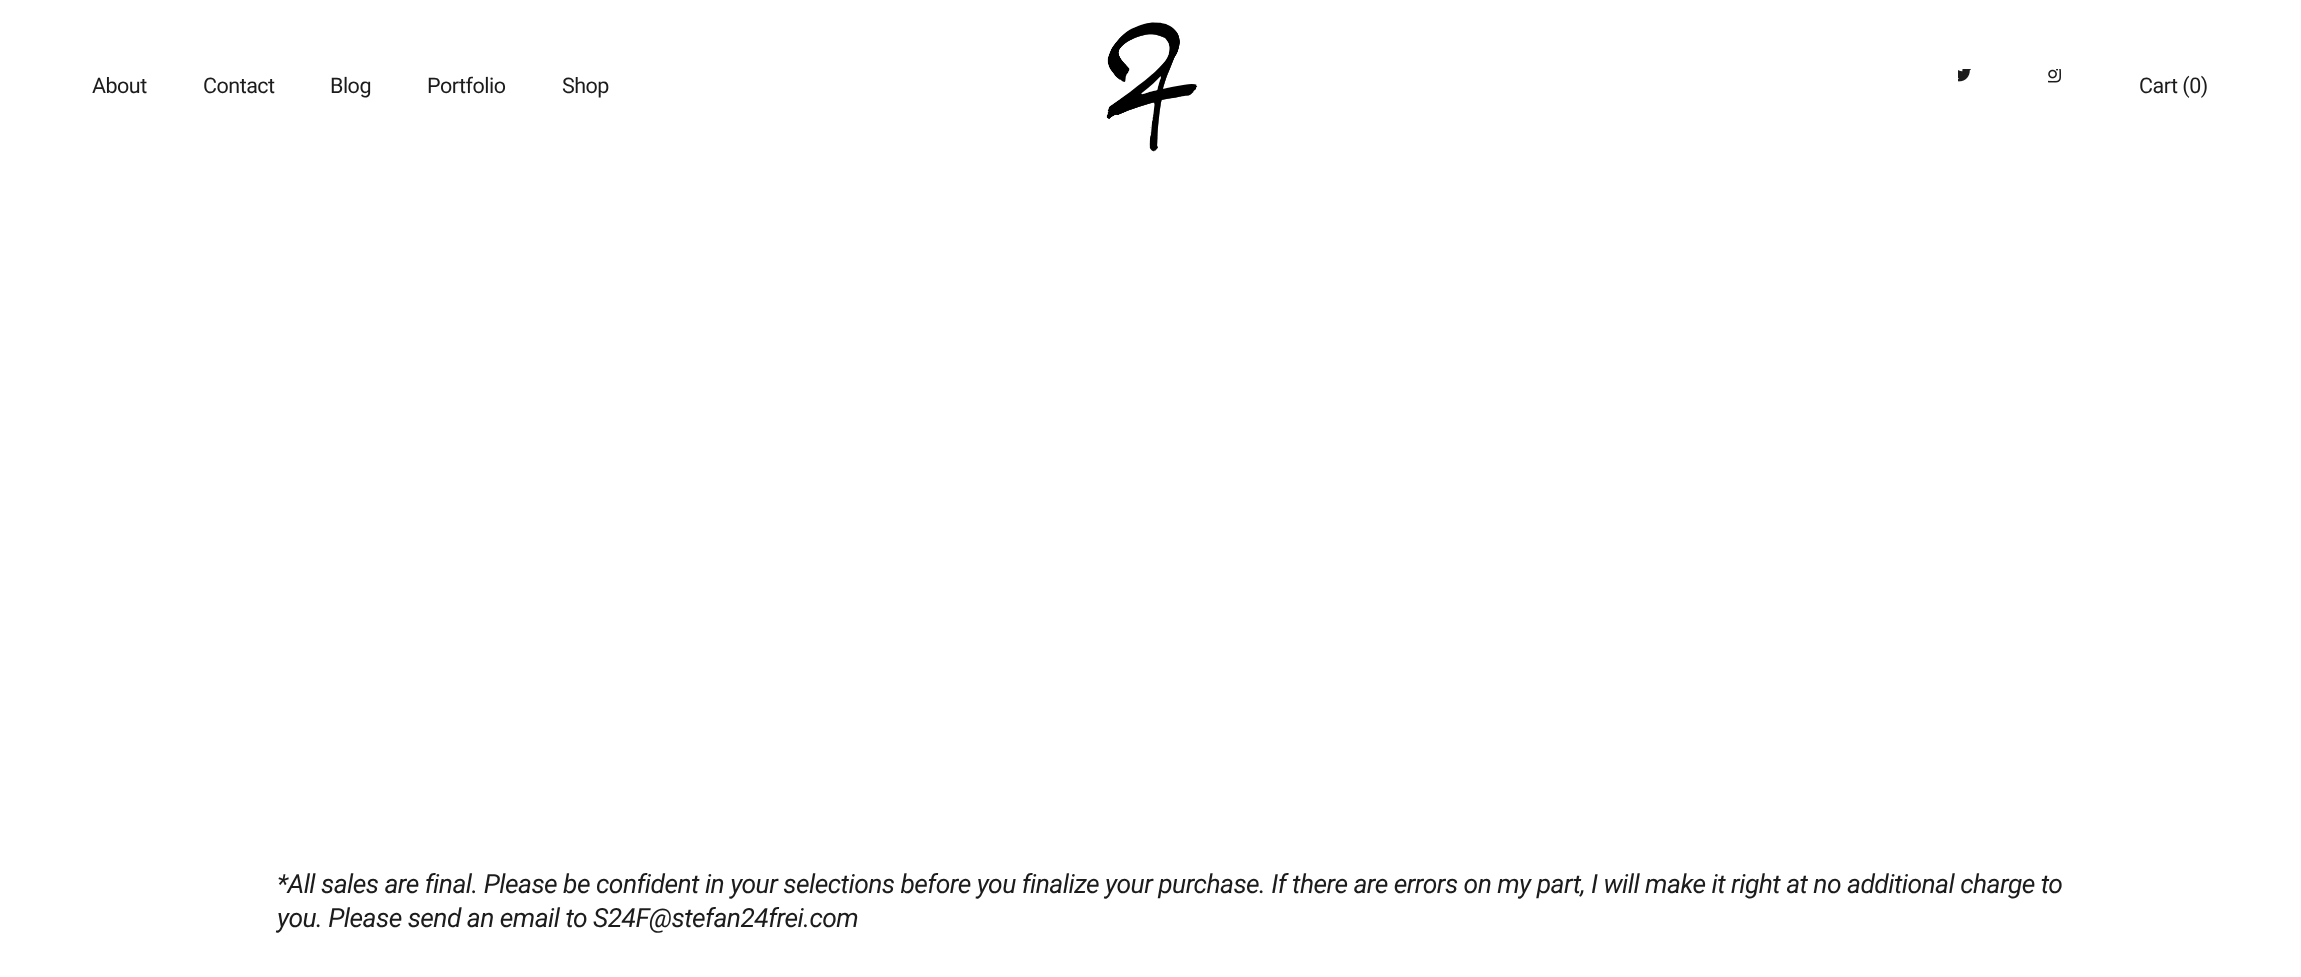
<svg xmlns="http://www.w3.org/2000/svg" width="2301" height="977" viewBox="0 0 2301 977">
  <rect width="100%" height="100%" fill="rgb(255,255,255)"/>
  <g font-family="Roboto" font-size="21.5" letter-spacing="-0.5" fill="rgb(28,28,28)">
    <text x="92" y="93">About</text>
    <text x="203" y="93">Contact</text>
    <text x="330" y="93">Blog</text>
    <text x="427" y="93">Portfolio</text>
    <text x="562" y="93">Shop</text>
  </g>
  <image x="1106" y="22" width="92" height="130" href="pic1.png"/>
  <image x="1958" y="69" width="13" height="13" href="pic2.png"/>
  <image x="2048" y="69" width="13" height="14" href="pic3.png"/>
  <text x="2139" y="93" font-family="Roboto" font-size="21.5" letter-spacing="-0.5" fill="rgb(28,28,28)">Cart (0)</text>
  <g font-family="Roboto" font-size="26.4" font-style="italic" letter-spacing="-0.53" fill="rgb(28,28,28)">
    <text>
      <tspan x="277" y="893">*All sales are final. Please be confident in your selections before you finalize your purchase. If there are errors on my part, I will make it right at no additional charge to</tspan>
      <tspan x="277" y="927">you. Please send an email to S24F@stefan24frei.com</tspan>
    </text>
  </g>
</svg>
